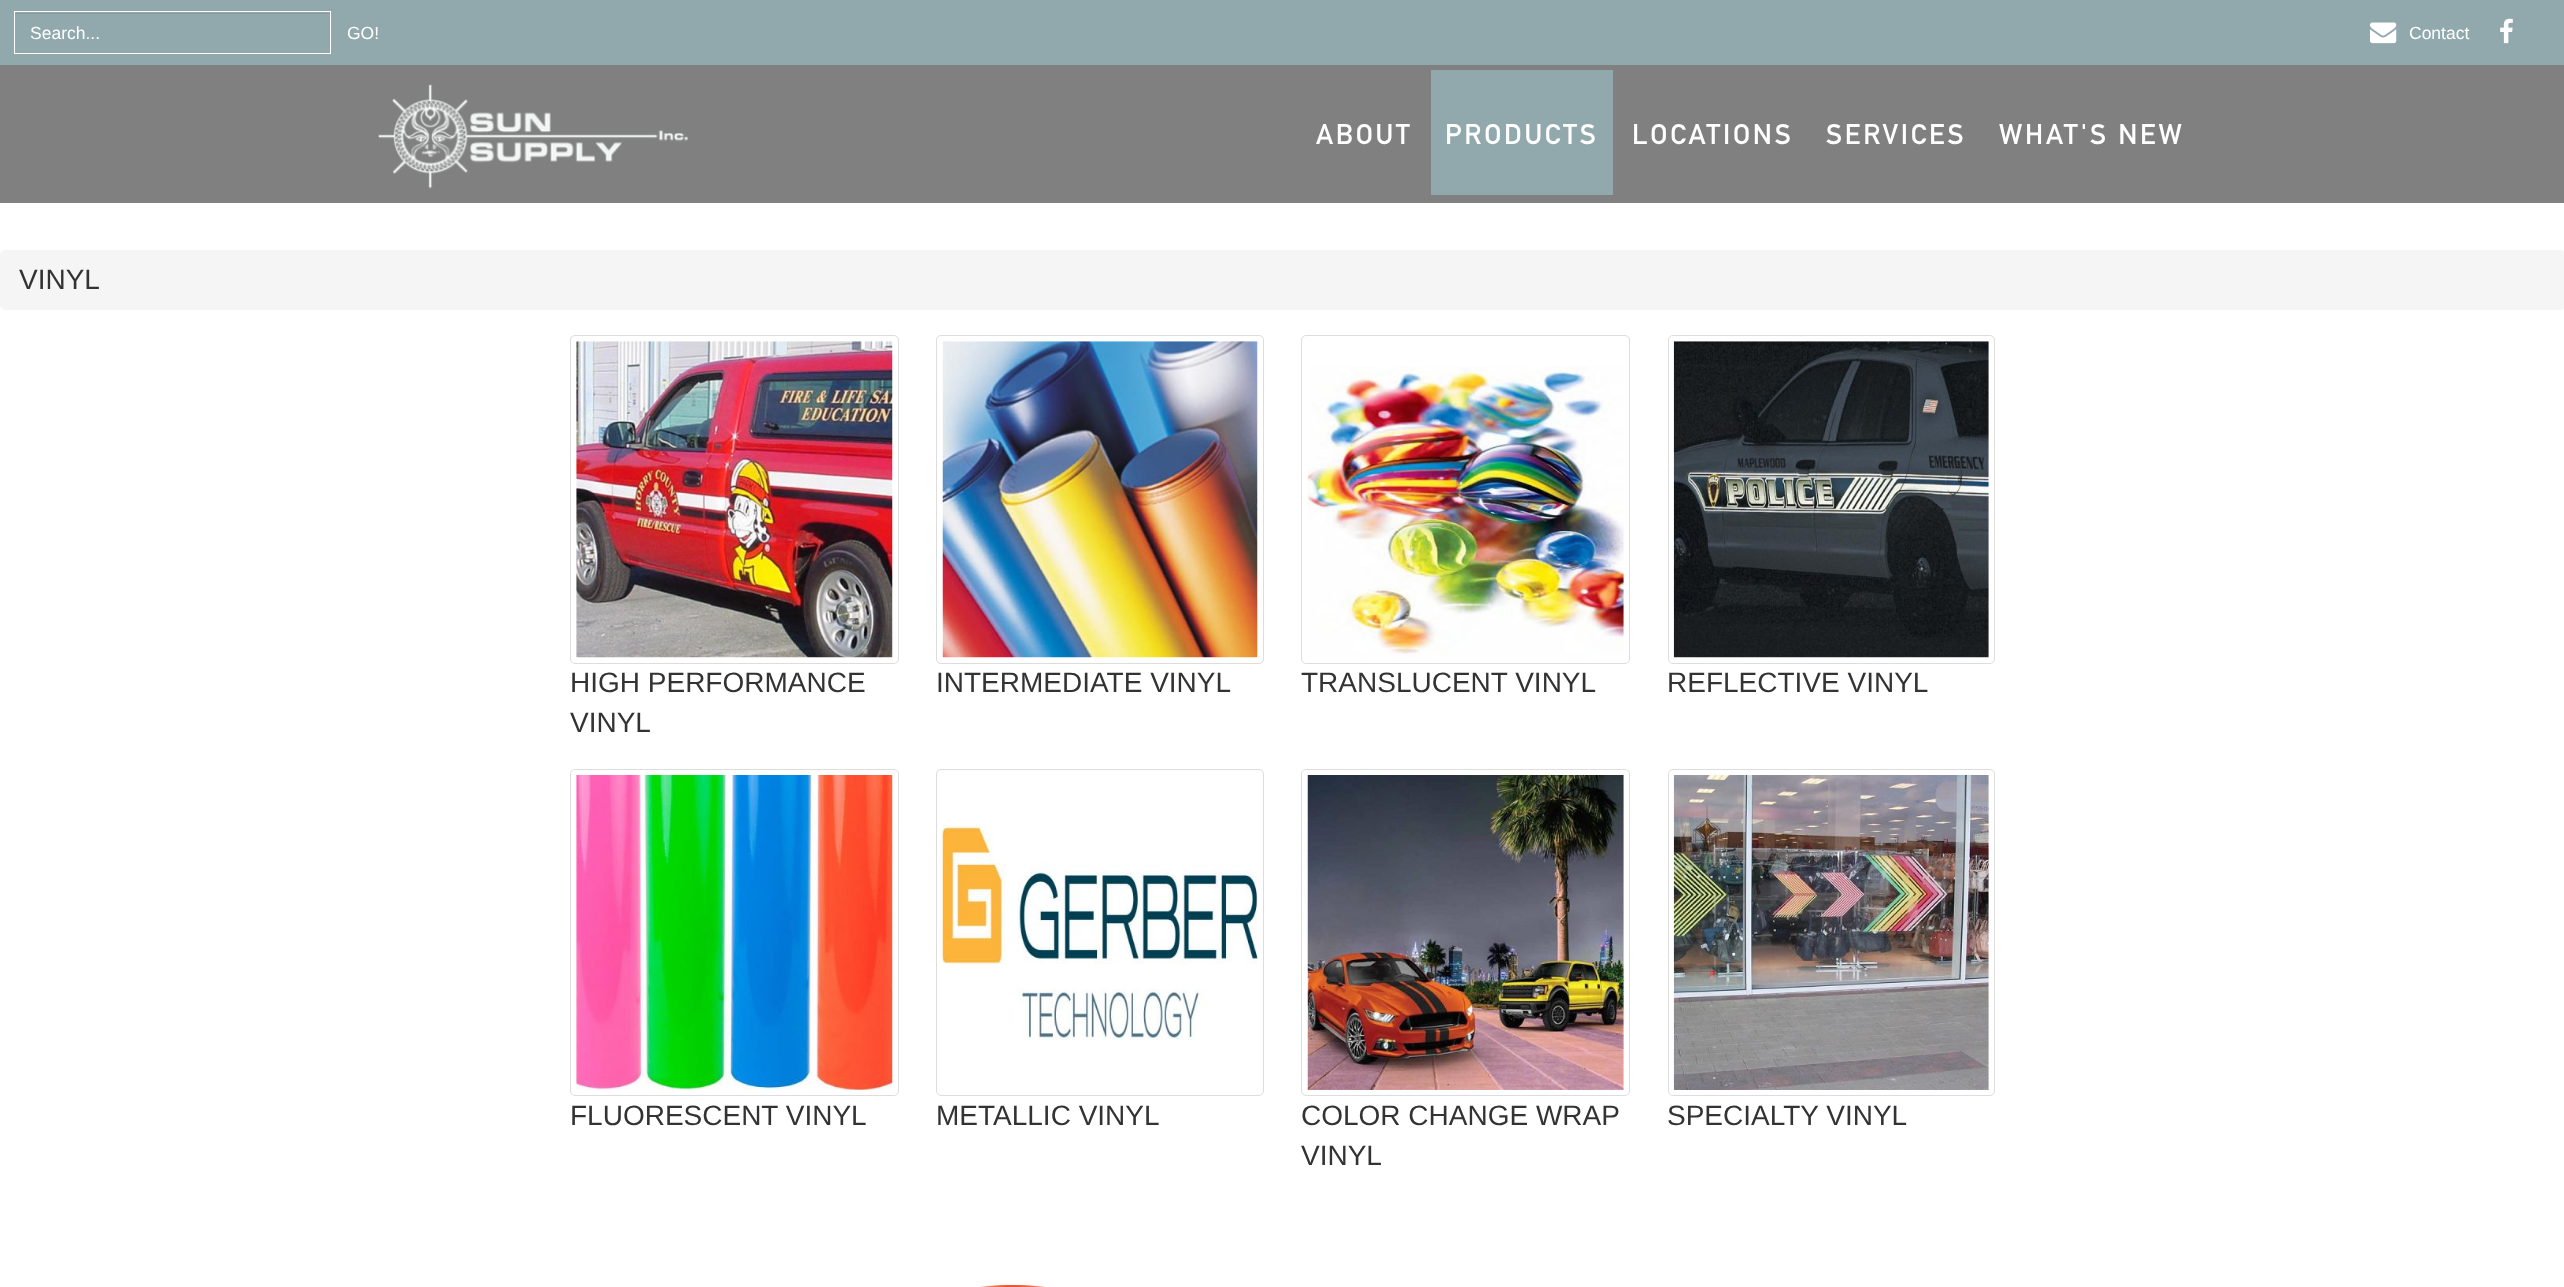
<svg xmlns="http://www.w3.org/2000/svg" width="2564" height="1287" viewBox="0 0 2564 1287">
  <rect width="100%" height="100%" fill="rgb(255,255,255)"/>
  <rect x="0" y="0" width="2564" height="65" fill="rgb(145,169,173)"/>
  <rect x="15" y="13" width="315" height="1" fill="rgb(134,156,160)"/>
  <rect x="14.5" y="11.5" width="316" height="42" fill="none" stroke="rgb(255,255,255)"/>
  <g font-family="Liberation Sans" font-size="17.5" fill="rgb(255,255,255)">
    <text x="30" y="39">Search...</text>
    <text x="347" y="39">GO!</text>
  </g>
  <image x="2370" y="22" width="27" height="22" href="pic1.png"/>
  <text x="2409" y="39" font-family="Liberation Sans" font-size="17.5" fill="rgb(255,255,255)">Contact</text>
  <image x="2500" y="18" width="13" height="26" href="pic2.png"/>
  <rect x="0" y="65" width="2564" height="138" fill="rgb(128,128,128)"/>
  <image x="378" y="84" width="310" height="105" href="pic3.png"/>
  <text x="1316" y="144" font-family="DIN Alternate" font-size="28" font-weight="bold" letter-spacing="2.75" fill="rgb(255,255,255)">ABOUT</text>
  <rect x="1431" y="70" width="182" height="125" fill="rgb(145,169,173)"/>
  <g font-family="DIN Alternate" font-size="28" font-weight="bold" letter-spacing="2.75" fill="rgb(255,255,255)">
    <text x="1445" y="144">PRODUCTS</text>
    <text x="1632" y="144">LOCATIONS</text>
    <text x="1826" y="144">SERVICES</text>
    <text x="1999" y="144">WHAT'S NEW</text>
  </g>
  <rect x="0" y="250" width="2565" height="60" rx="5" fill="rgb(245,245,245)"/>
  <text x="19" y="289" font-family="Liberation Sans" font-size="28" fill="rgb(51,51,51)">VINYL</text>
  <rect x="570.5" y="335.5" width="328" height="328" rx="4.5" fill="none" stroke="rgb(221,221,221)"/>
  <image x="576" y="341" width="317" height="317" href="pic4.png"/>
  <g font-family="Liberation Sans" font-size="28" fill="rgb(51,51,51)">
    <text>
      <tspan x="570" y="692">HIGH PERFORMANCE</tspan>
      <tspan x="570" y="732">VINYL</tspan>
    </text>
  </g>
  <rect x="936.5" y="335.5" width="327" height="328" rx="4.5" fill="none" stroke="rgb(221,221,221)"/>
  <image x="942" y="341" width="316" height="317" href="pic5.png"/>
  <text x="936" y="692" font-family="Liberation Sans" font-size="28" fill="rgb(51,51,51)">INTERMEDIATE VINYL</text>
  <rect x="1301.5" y="335.5" width="328" height="328" rx="4.5" fill="none" stroke="rgb(221,221,221)"/>
  <image x="1307" y="366" width="317" height="291" href="pic6.png"/>
  <text x="1301" y="692" font-family="Liberation Sans" font-size="28" fill="rgb(51,51,51)">TRANSLUCENT VINYL</text>
  <rect x="1668.5" y="335.5" width="326" height="328" rx="4.5" fill="none" stroke="rgb(221,221,221)"/>
  <image x="1673" y="341" width="316" height="317" href="pic7.png"/>
  <text x="1667" y="692" font-family="Liberation Sans" font-size="28" fill="rgb(51,51,51)">REFLECTIVE VINYL</text>
  <rect x="570.5" y="769.5" width="328" height="326" rx="4.5" fill="none" stroke="rgb(221,221,221)"/>
  <image x="576" y="775" width="317" height="315" href="pic8.png"/>
  <text x="570" y="1125" font-family="Liberation Sans" font-size="28" fill="rgb(51,51,51)">FLUORESCENT VINYL</text>
  <rect x="936.5" y="769.5" width="327" height="326" rx="4.5" fill="none" stroke="rgb(221,221,221)"/>
  <image x="942" y="825" width="316" height="215" href="pic9.png"/>
  <text x="936" y="1125" font-family="Liberation Sans" font-size="28" fill="rgb(51,51,51)">METALLIC VINYL</text>
  <rect x="1301.5" y="769.5" width="328" height="326" rx="4.5" fill="none" stroke="rgb(221,221,221)"/>
  <image x="1307" y="775" width="317" height="315" href="pic10.png"/>
  <g font-family="Liberation Sans" font-size="28" fill="rgb(51,51,51)">
    <text>
      <tspan x="1301" y="1125">COLOR CHANGE WRAP</tspan>
      <tspan x="1301" y="1165">VINYL</tspan>
    </text>
  </g>
  <rect x="1668.5" y="769.5" width="326" height="326" rx="4.5" fill="none" stroke="rgb(221,221,221)"/>
  <image x="1673" y="775" width="316" height="315" href="pic11.png"/>
  <text x="1667" y="1125" font-family="Liberation Sans" font-size="28" fill="rgb(51,51,51)">SPECIALTY VINYL</text>
  <image x="980" y="1285" width="65" height="2" href="pic12.png"/>
</svg>
